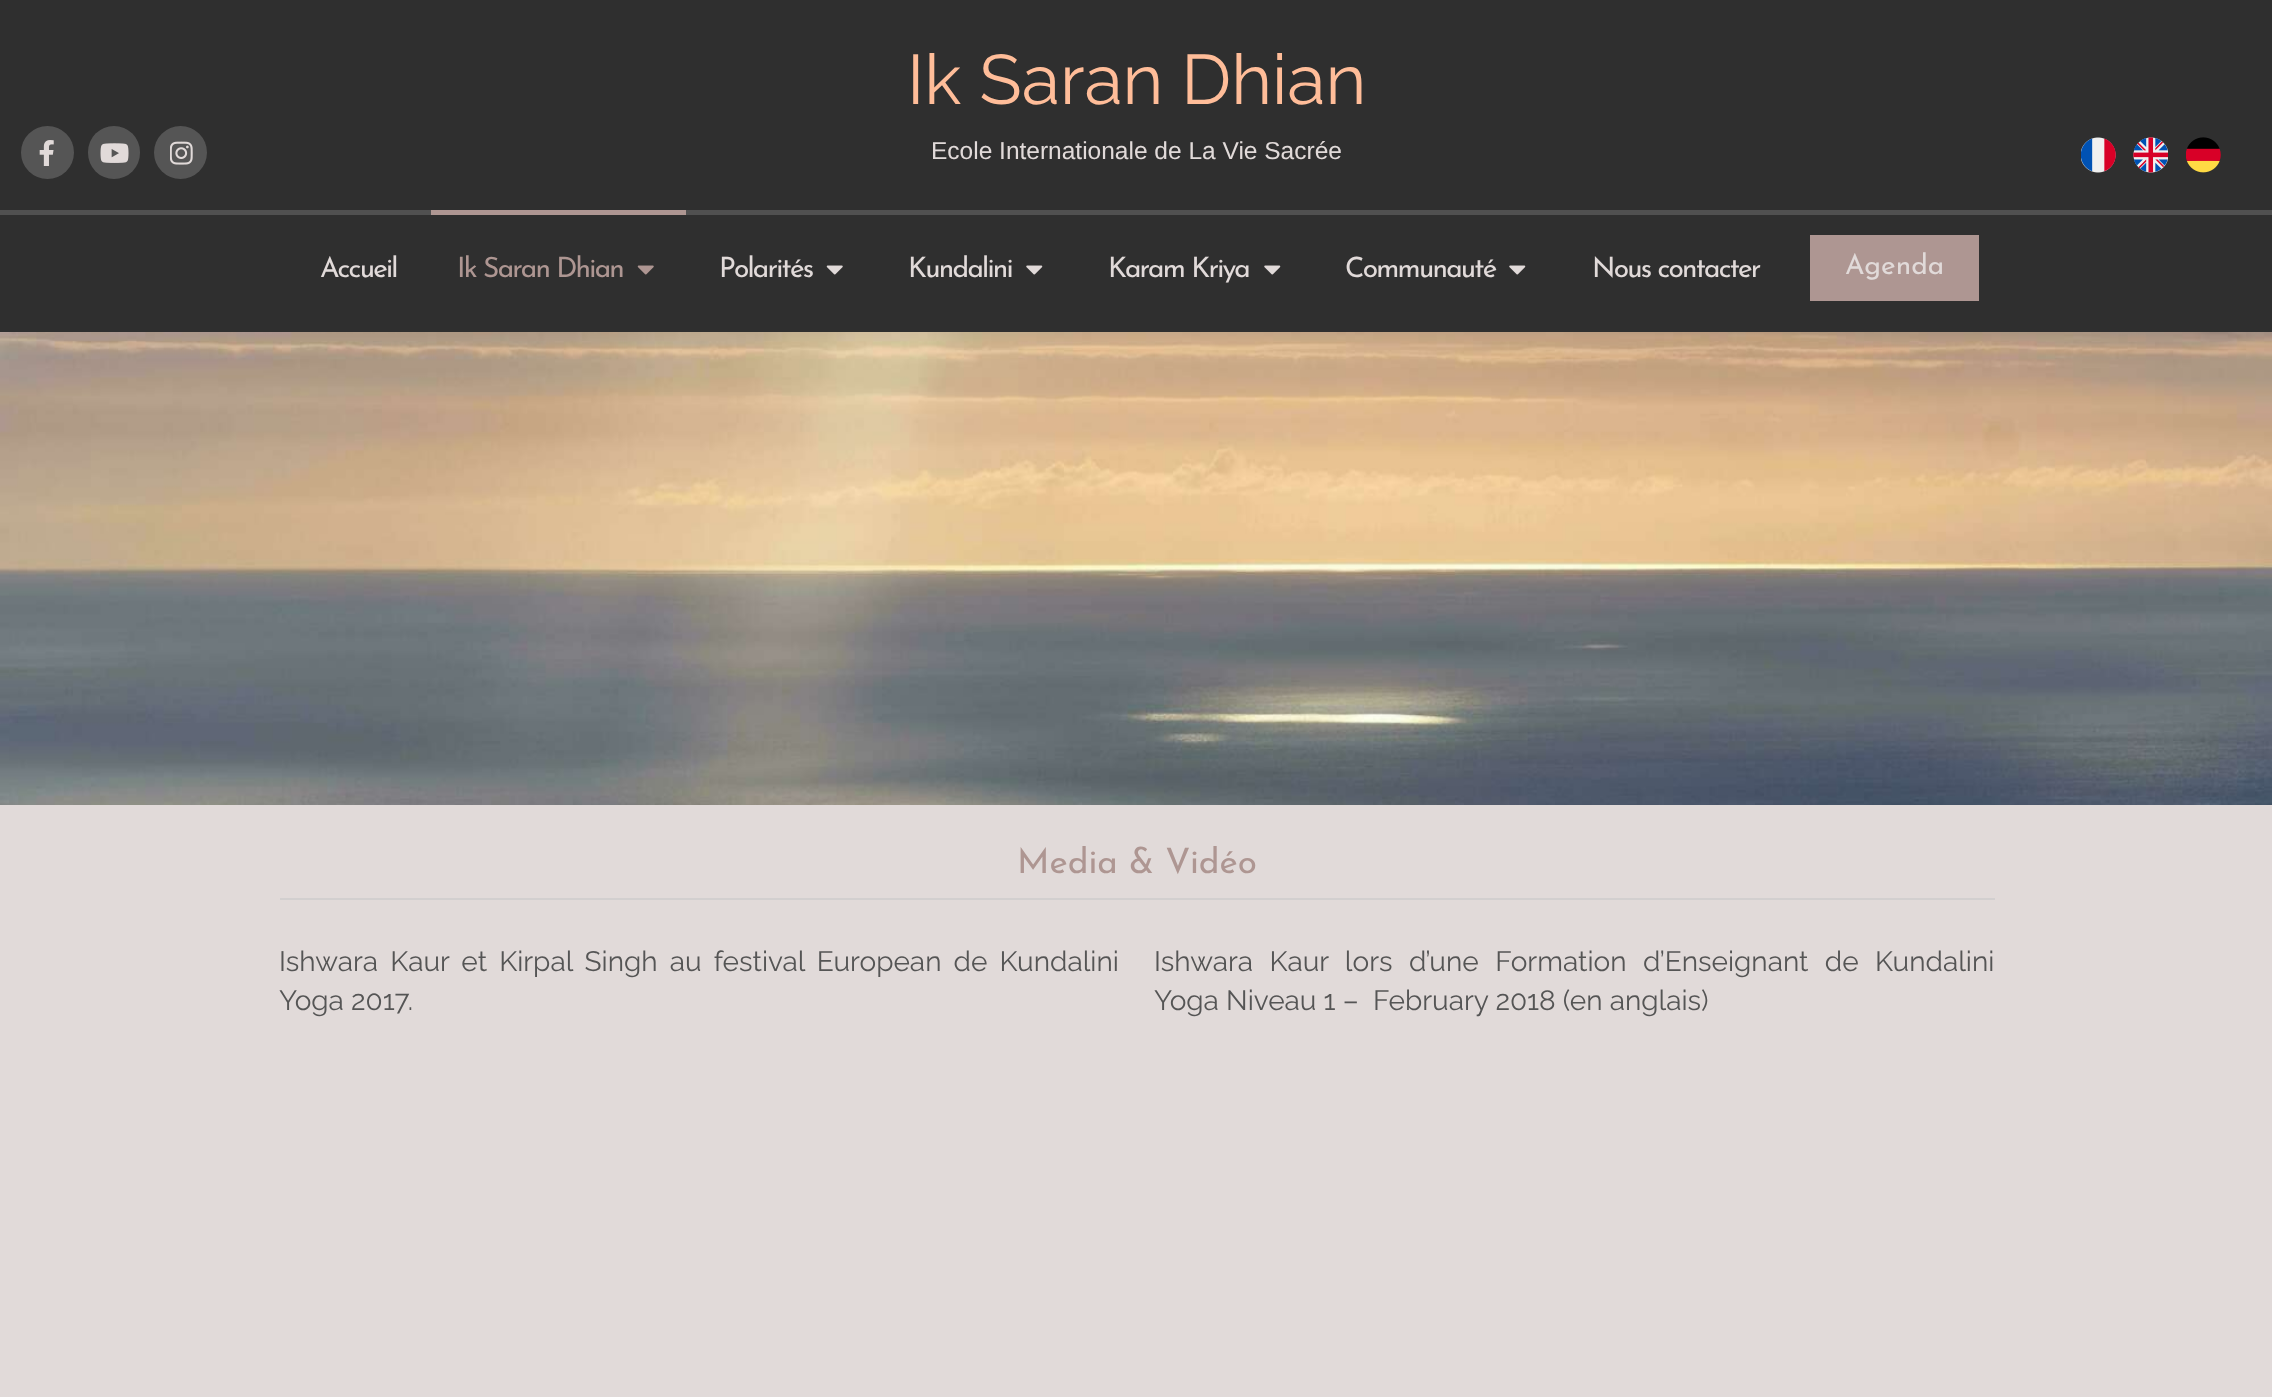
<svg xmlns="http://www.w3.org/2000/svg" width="2272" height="1397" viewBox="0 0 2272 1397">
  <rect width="100%" height="100%" fill="rgb(225,218,217)"/>
  <rect x="0" y="0" width="2272" height="210" fill="rgb(47,47,47)"/>
  <text x="907" y="104" font-family="Raleway" font-size="70" fill="rgb(255,189,153)">Ik Saran Dhian</text>
  <circle cx="47.5" cy="152.5" r="26.5" fill="rgb(85,85,85)"/>
  <image x="39" y="140" width="15" height="26" href="pic1.png"/>
  <rect x="88" y="126" width="52" height="53" rx="26" fill="rgb(85,85,85)"/>
  <image x="100" y="143" width="29" height="20" href="pic2.png"/>
  <circle cx="180.5" cy="152.5" r="26.5" fill="rgb(85,85,85)"/>
  <image x="170" y="141" width="23" height="24" href="pic3.png"/>
  <text x="931" y="159" font-family="Liberation Sans" font-size="24.5" fill="rgb(225,218,217)">Ecole Internationale de La Vie Sacrée</text>
  <image x="2081" y="137" width="35" height="36" href="pic4.png"/>
  <image x="2133" y="137" width="35" height="36" href="pic5.png"/>
  <image x="2186" y="137" width="35" height="36" href="pic6.png"/>
  <rect x="0" y="215" width="2272" height="117" fill="rgb(47,47,47)"/>
  <image x="0" y="332" width="2272" height="473" href="pic7.png"/>
  <rect x="0" y="210" width="2272" height="5" fill="rgb(80,80,80)"/>
  <text x="320" y="277" font-family="Josefin Sans" font-size="28" letter-spacing="-1.75" fill="rgb(225,218,217)">Accueil</text>
  <rect x="431" y="210" width="255" height="5" fill="rgb(174,150,146)"/>
  <text x="457" y="277" font-family="Josefin Sans" font-size="28" letter-spacing="-1.75" fill="rgb(174,150,146)">Ik Saran Dhian</text>
  <image x="637" y="265" width="17" height="10" href="pic8.png"/>
  <text x="719" y="277" font-family="Josefin Sans" font-size="28" letter-spacing="-1.75" fill="rgb(225,218,217)">Polarités</text>
  <image x="826" y="265" width="17" height="10" href="pic9.png"/>
  <text x="908" y="277" font-family="Josefin Sans" font-size="28" letter-spacing="-1.75" fill="rgb(225,218,217)">Kundalini</text>
  <image x="1026" y="265" width="17" height="10" href="pic10.png"/>
  <text x="1108" y="277" font-family="Josefin Sans" font-size="28" letter-spacing="-1.75" fill="rgb(225,218,217)">Karam Kriya</text>
  <image x="1264" y="265" width="17" height="10" href="pic10.png"/>
  <text x="1345" y="277" font-family="Josefin Sans" font-size="28" letter-spacing="-1.75" fill="rgb(225,218,217)">Communauté</text>
  <image x="1509" y="265" width="17" height="10" href="pic10.png"/>
  <text x="1592" y="277" font-family="Josefin Sans" font-size="28" letter-spacing="-1.75" fill="rgb(225,218,217)">Nous contacter</text>
  <rect x="1810" y="235" width="169" height="66" fill="rgb(174,150,146)"/>
  <text x="1845" y="274" font-family="Josefin Sans" font-size="28" fill="rgb(225,218,217)">Agenda</text>
  <rect x="280" y="898" width="1715" height="2" fill="rgb(210,207,207)"/>
  <text x="1017" y="873" font-family="Josefin Sans" font-size="35" fill="rgb(174,150,146)">Media &amp; Vidéo</text>
  <g font-family="Raleway" font-size="28" fill="rgb(85,85,85)">
    <text>
      <tspan x="279" y="971" word-spacing="5">Ishwara Kaur et Kirpal Singh au festival European de Kundalini</tspan>
      <tspan x="279" y="1010">Yoga 2017.</tspan>
    </text>
    <text xml:space="preserve"><tspan x="1154" y="971" word-spacing="9.25">Ishwara Kaur lors d’une Formation d’Enseignant de Kundalini</tspan><tspan x="1154" y="1010">Yoga Niveau 1 –  February 2018 (en anglais)</tspan></text>
  </g>
</svg>
